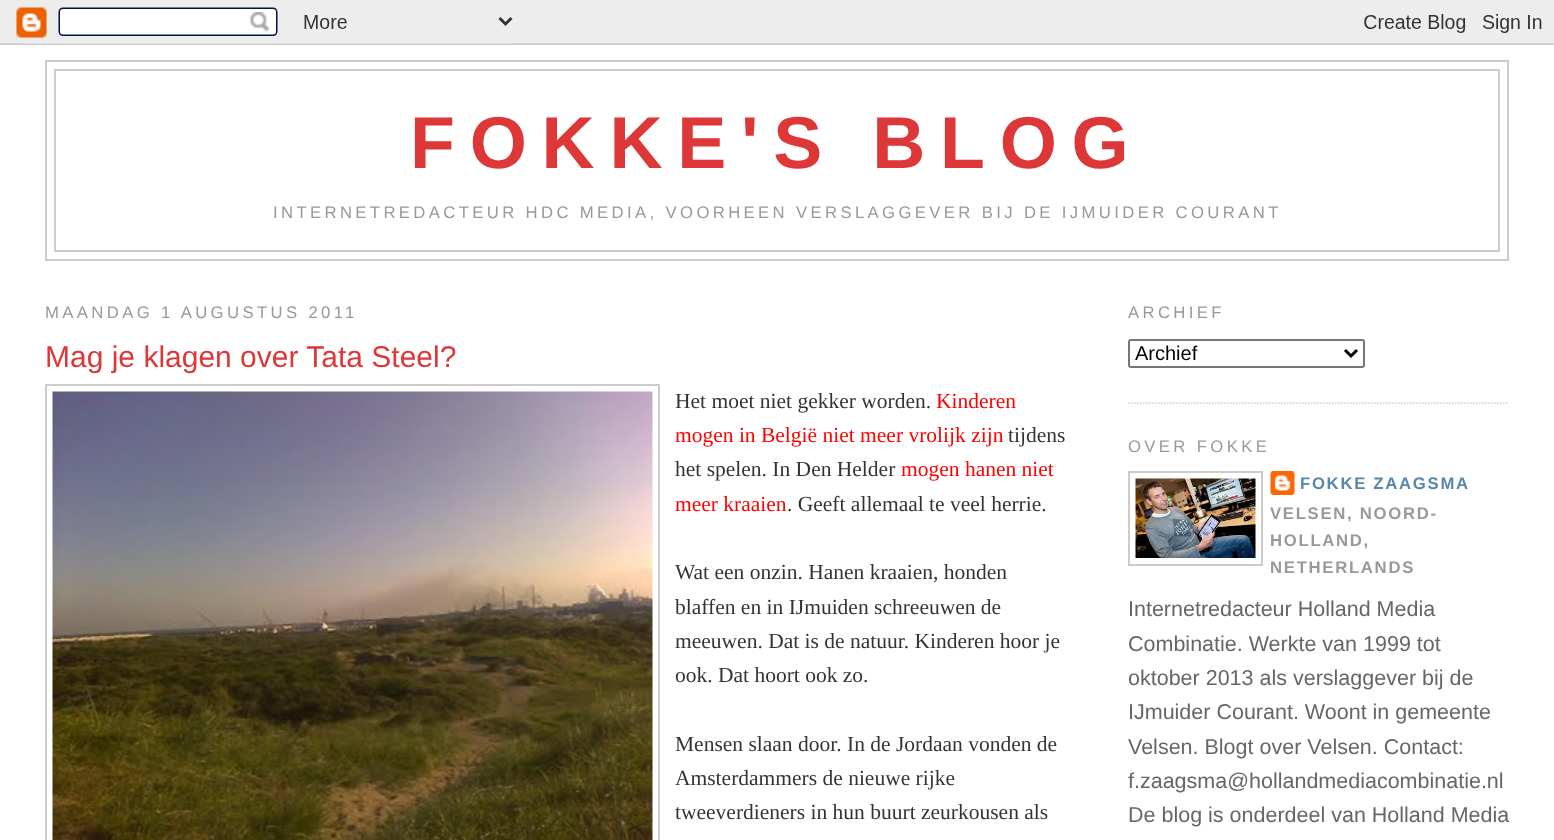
<svg xmlns="http://www.w3.org/2000/svg" width="1554" height="840" viewBox="0 0 1554 840">
  <rect width="100%" height="100%" fill="rgb(255,255,255)"/>
  <image x="0" y="0" width="1554" height="45" href="pic1.png"/>
  <rect x="46" y="61" width="1462" height="199" fill="none" stroke="rgb(204,204,204)" stroke-width="2"/>
  <rect x="55" y="70" width="1444" height="181" fill="none" stroke="rgb(204,204,204)" stroke-width="2"/>
  <text x="410" y="168" font-family="Liberation Sans" font-size="73.5" font-weight="bold" letter-spacing="14.75" fill="rgb(221,55,55)">FOKKE'S BLOG</text>
  <g font-family="Liberation Sans" font-size="16.73" letter-spacing="3.35" fill="rgb(153,153,153)">
    <text x="273" y="218">INTERNETREDACTEUR HDC MEDIA, VOORHEEN VERSLAGGEVER BIJ DE IJMUIDER COURANT</text>
    <text x="45" y="318">MAANDAG 1 AUGUSTUS 2011</text>
  </g>
  <text x="45" y="367" font-family="Liberation Sans" font-size="30" fill="rgb(221,55,55)">Mag je klagen over Tata Steel?</text>
  <rect x="46" y="385" width="613" height="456" fill="none" stroke="rgb(204,204,204)" stroke-width="2"/>
  <image x="52" y="391" width="601" height="449" href="pic2.png"/>
  <text x="675" y="408" font-family="Liberation Serif" font-size="21.5" fill="rgb(51,51,51)">Het moet niet gekker worden.</text>
  <g font-family="Liberation Serif" font-size="21.5" fill="rgb(255,0,0)">
    <text x="936" y="408">Kinderen</text>
    <text x="675" y="442">mogen in België niet meer vrolijk zijn</text>
  </g>
  <g font-family="Liberation Serif" font-size="21.5" fill="rgb(51,51,51)">
    <text x="1008" y="442">tijdens</text>
    <text x="675" y="476">het spelen. In Den Helder</text>
  </g>
  <g font-family="Liberation Serif" font-size="21.5" fill="rgb(255,0,0)">
    <text x="901" y="476">mogen hanen niet</text>
    <text x="675" y="511">meer kraaien</text>
  </g>
  <g font-family="Liberation Serif" font-size="21.5" fill="rgb(51,51,51)">
    <text x="787" y="511">. Geeft allemaal te veel herrie.</text>
    <text>
      <tspan x="675" y="579">Wat een onzin. Hanen kraaien, honden</tspan>
      <tspan x="675" y="614">blaffen en in IJmuiden schreeuwen de</tspan>
      <tspan x="675" y="648">meeuwen. Dat is de natuur. Kinderen hoor je</tspan>
      <tspan x="675" y="682">ook. Dat hoort ook zo.</tspan>
    </text>
    <text>
      <tspan x="675" y="751">Mensen slaan door. In de Jordaan vonden de</tspan>
      <tspan x="675" y="785">Amsterdammers de nieuwe rijke</tspan>
      <tspan x="675" y="819">tweeverdieners in hun buurt zeurkousen als</tspan>
    </text>
  </g>
  <path d="M1128 403H1509" fill="none" stroke="rgb(204,204,204)" stroke-width="1.5" stroke-dasharray="1.5 1.5"/>
  <text x="1128" y="318" font-family="Liberation Sans" font-size="16.73" letter-spacing="3.35" fill="rgb(153,153,153)">ARCHIEF</text>
  <rect x="1129" y="340" width="235" height="27" rx="2" fill="none" stroke="rgb(118,118,118)" stroke-width="2"/>
  <path d="M1345 350L1351 356L1357 350" fill="none" stroke="rgb(0,0,0)" stroke-width="3"/>
  <text x="1135" y="360" font-family="Liberation Sans" font-size="20" fill="rgb(0,0,0)">Archief</text>
  <text x="1128" y="452" font-family="Liberation Sans" font-size="16.73" letter-spacing="3.35" fill="rgb(153,153,153)">OVER FOKKE</text>
  <rect x="1129" y="472" width="133" height="93" fill="none" stroke="rgb(204,204,204)" stroke-width="2"/>
  <image x="1135" y="478" width="121" height="80" href="pic3.png"/>
  <image x="1270" y="471" width="25" height="24" href="pic4.png"/>
  <text x="1300" y="489" font-family="Liberation Sans" font-size="16.73" font-weight="bold" letter-spacing="1.7" fill="rgb(85,136,170)">FOKKE ZAAGSMA</text>
  <g font-family="Liberation Sans" font-size="16.73" font-weight="bold" letter-spacing="1.7" fill="rgb(153,153,153)">
    <text>
      <tspan x="1270" y="519">VELSEN, NOORD-</tspan>
      <tspan x="1270" y="546">HOLLAND,</tspan>
      <tspan x="1270" y="573">NETHERLANDS</tspan>
    </text>
  </g>
  <g font-family="Liberation Sans" font-size="21.5" fill="rgb(102,102,102)">
    <text>
      <tspan x="1128" y="616">Internetredacteur Holland Media</tspan>
      <tspan x="1128" y="651">Combinatie. Werkte van 1999 tot</tspan>
      <tspan x="1128" y="685">oktober 2013 als verslaggever bij de</tspan>
      <tspan x="1128" y="719">IJmuider Courant. Woont in gemeente</tspan>
      <tspan x="1128" y="754">Velsen. Blogt over Velsen. Contact:</tspan>
      <tspan x="1128" y="788">f.zaagsma@hollandmediacombinatie.nl</tspan>
      <tspan x="1128" y="822">De blog is onderdeel van Holland Media</tspan>
    </text>
  </g>
</svg>
